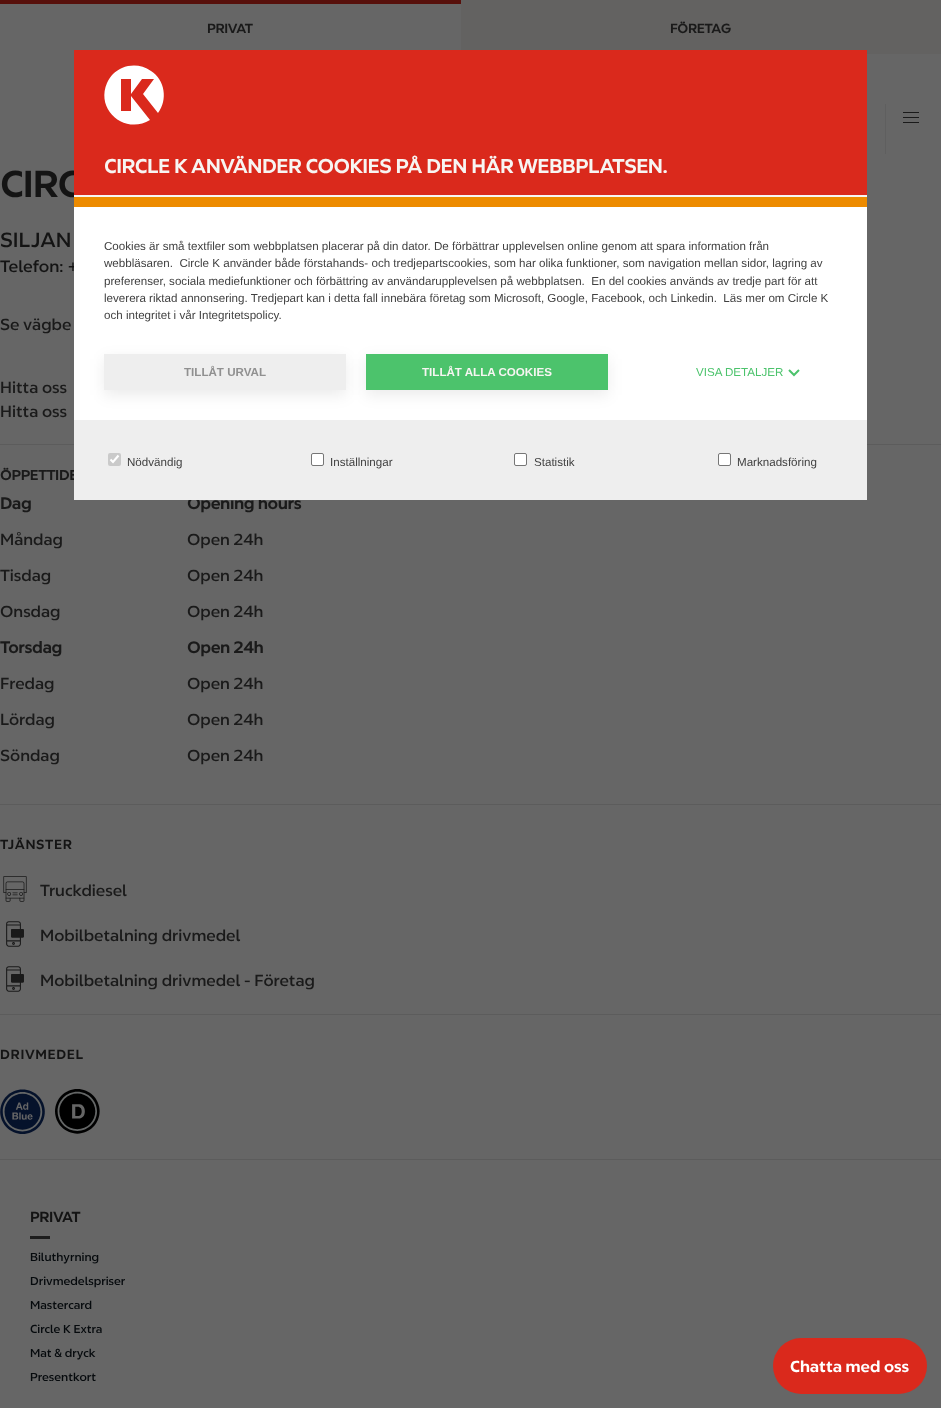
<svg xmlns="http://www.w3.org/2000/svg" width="941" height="1408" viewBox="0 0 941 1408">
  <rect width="100%" height="100%" fill="rgb(102,102,102)"/>
  <rect x="461" y="0" width="480" height="54" fill="rgb(99,98,97)"/>
  <rect x="0" y="0" width="461" height="4" fill="rgb(87,16,11)"/>
  <g font-family="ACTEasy" font-size="12.75" font-weight="bold" fill="rgb(26,26,26)">
    <text x="207" y="33">PRIVAT</text>
    <text x="670" y="33">FÖRETAG</text>
  </g>
  <rect x="885" y="104" width="1" height="50" fill="rgb(95,95,95)"/>
  <rect x="903" y="112" width="16" height="1" fill="rgb(26,26,26)"/>
  <rect x="903" y="117" width="16" height="1" fill="rgb(26,26,26)"/>
  <rect x="903" y="122" width="16" height="1" fill="rgb(26,26,26)"/>
  <text x="0" y="197" font-family="ACTEasy" font-size="36" font-weight="bold" fill="rgb(20,20,20)">CIRC</text>
  <text x="0" y="247" font-family="ACTEasy" font-size="20.5" font-weight="500" fill="rgb(20,20,20)">SILJAN</text>
  <text x="0" y="272" font-family="ACTEasy" font-size="16.5" font-weight="500" fill="rgb(20,20,20)">Telefon: +</text>
  <g font-family="ACTEasy" font-size="16" font-weight="500" fill="rgb(26,26,26)">
    <text x="0" y="330">Se vägbe</text>
    <text>
      <tspan x="0" y="393">Hitta oss</tspan>
      <tspan x="0" y="417">Hitta oss</tspan>
    </text>
  </g>
  <rect x="0" y="444" width="941" height="1" fill="rgb(92,92,92)"/>
  <text x="0" y="480" font-family="ACTEasy" font-size="13.75" font-weight="bold" fill="rgb(26,26,26)">ÖPPETTIDE</text>
  <g font-family="ACTEasy" font-size="16" font-weight="bold" fill="rgb(26,26,26)">
    <text x="0" y="509">Dag</text>
    <text x="187" y="509">Opening hours</text>
  </g>
  <g font-family="ACTEasy" font-size="16" font-weight="500" fill="rgb(26,26,26)">
    <text x="0" y="545">Måndag</text>
    <text x="187" y="545">Open 24h</text>
    <text x="0" y="581">Tisdag</text>
    <text x="187" y="581">Open 24h</text>
    <text x="0" y="617">Onsdag</text>
    <text x="187" y="617">Open 24h</text>
  </g>
  <g font-family="ACTEasy" font-size="16" font-weight="bold" fill="rgb(26,26,26)">
    <text x="0" y="653">Torsdag</text>
    <text x="187" y="653">Open 24h</text>
  </g>
  <g font-family="ACTEasy" font-size="16" font-weight="500" fill="rgb(26,26,26)">
    <text x="0" y="689">Fredag</text>
    <text x="187" y="689">Open 24h</text>
    <text x="0" y="725">Lördag</text>
    <text x="187" y="725">Open 24h</text>
    <text x="0" y="761">Söndag</text>
    <text x="187" y="761">Open 24h</text>
  </g>
  <rect x="0" y="804" width="941" height="1" fill="rgb(92,92,92)"/>
  <text x="0" y="849" font-family="ACTEasy" font-size="12.75" font-weight="bold" letter-spacing="1" fill="rgb(20,20,20)">TJÄNSTER</text>
  <image x="3" y="876" width="24" height="26" href="pic1.png"/>
  <text x="40" y="896" font-family="ACTEasy" font-size="16" font-weight="500" fill="rgb(26,26,26)">Truckdiesel</text>
  <image x="6" y="921" width="18" height="26" href="pic2.png"/>
  <text x="40" y="941" font-family="ACTEasy" font-size="16" font-weight="500" fill="rgb(26,26,26)">Mobilbetalning drivmedel</text>
  <image x="6" y="966" width="18" height="26" href="pic2.png"/>
  <text x="40" y="986" font-family="ACTEasy" font-size="16" font-weight="500" fill="rgb(26,26,26)">Mobilbetalning drivmedel - Företag</text>
  <rect x="0" y="1014" width="941" height="1" fill="rgb(92,92,92)"/>
  <text x="0" y="1059" font-family="ACTEasy" font-size="12.75" font-weight="bold" letter-spacing="1" fill="rgb(20,20,20)">DRIVMEDEL</text>
  <image x="0" y="1089" width="45" height="45" href="pic3.png"/>
  <image x="55" y="1089" width="45" height="45" href="pic4.png"/>
  <rect x="0" y="1159" width="941" height="1" fill="rgb(92,92,92)"/>
  <text x="30" y="1222" font-family="ACTEasy" font-size="14" font-weight="bold" fill="rgb(20,20,20)">PRIVAT</text>
  <rect x="30" y="1236" width="20" height="3" fill="rgb(29,29,29)"/>
  <g font-family="ACTEasy" font-size="11.6" font-weight="500" fill="rgb(6,10,13)">
    <text x="30" y="1261">Biluthyrning</text>
    <text x="30" y="1285">Drivmedelspriser</text>
    <text x="30" y="1309">Mastercard</text>
    <text x="30" y="1333">Circle K Extra</text>
    <text x="30" y="1357">Mat &amp; dryck</text>
    <text x="30" y="1381">Presentkort</text>
  </g>
  <rect x="74" y="207" width="793" height="213" fill="rgb(255,255,255)"/>
  <rect x="74" y="50" width="793" height="145" fill="rgb(218,41,28)"/>
  <rect x="74" y="195" width="793" height="2" fill="rgb(247,245,242)"/>
  <path d="M143 94L154 79H142L131 94V79H121V111H131V96L150 120C126 135 95 111 107 83C110 76 115 71 122 68C132 64 142 65 151 71C165 80 168 100 158 113Z" fill="rgb(255,255,255)"/>
  <text x="104" y="173" font-family="ACTEasy" font-size="19.2" font-weight="bold" fill="rgb(247,245,242)">CIRCLE K ANVÄNDER COOKIES PÅ DEN HÄR WEBBPLATSEN.</text>
  <rect x="74" y="197" width="793" height="10" fill="rgb(237,139,0)"/>
  <g font-family="Liberation Sans" font-size="11.6" fill="rgb(65,65,65)">
    <text xml:space="preserve"><tspan x="104" y="250">Cookies är små textfiler som webbplatsen placerar på din dator. De förbättrar upplevelsen online genom att spara information från</tspan><tspan x="104" y="267">webbläsaren.  Circle K använder både förstahands- och tredjepartscookies, som har olika funktioner, som navigation mellan sidor, lagring av</tspan><tspan x="104" y="285">preferenser, sociala mediefunktioner och förbättring av användarupplevelsen på webbplatsen.  En del cookies används av tredje part för att</tspan><tspan x="104" y="302">leverera riktad annonsering. Tredjepart kan i detta fall innebära företag som Microsoft, Google, Facebook, och Linkedin.  Läs mer om Circle K</tspan><tspan x="104" y="319">och integritet i vår Integritetspolicy.</tspan></text>
  </g>
  <rect x="104" y="359" width="242" height="36" fill="rgba(0,0,0,0.08)" filter="blur(7.5px)"/>
  <rect x="104" y="354" width="242" height="36" fill="rgb(238,238,238)"/>
  <text x="184" y="376" font-family="Liberation Sans" font-size="11.6" font-weight="bold" fill="rgb(144,144,144)">TILLÅT URVAL</text>
  <rect x="366" y="359" width="242" height="36" fill="rgba(0,0,0,0.08)" filter="blur(7.5px)"/>
  <rect x="366" y="354" width="242" height="36" fill="rgb(76,195,108)"/>
  <text x="422" y="376" font-family="Liberation Sans" font-size="11.6" font-weight="bold" fill="rgb(247,245,242)">TILLÅT ALLA COOKIES</text>
  <text x="696" y="376" font-family="Liberation Sans" font-size="11.6" fill="rgb(76,195,108)">VISA DETALJER</text>
  <path d="M789 370L794 375L799 370" fill="none" stroke="rgb(76,195,108)" stroke-width="2"/>
  <rect x="74" y="420" width="793" height="80" fill="rgb(238,238,238)"/>
  <rect x="108" y="453" width="13" height="13" rx="2" fill="rgb(202,202,202)"/>
  <path d="M110.5 459.5L113 462L118.5 455.5" fill="none" stroke="rgb(255,255,255)" stroke-width="2.1"/>
  <text x="127" y="466" font-family="Liberation Sans" font-size="11.6" fill="rgb(65,65,65)">Nödvändig</text>
  <rect x="311.5" y="453.5" width="12" height="12" rx="1.5" fill="rgb(255,255,255)" stroke="rgb(118,118,118)"/>
  <text x="330" y="466" font-family="Liberation Sans" font-size="11.6" fill="rgb(65,65,65)">Inställningar</text>
  <rect x="514.5" y="453.5" width="12" height="12" rx="1.5" fill="rgb(255,255,255)" stroke="rgb(118,118,118)"/>
  <text x="534" y="466" font-family="Liberation Sans" font-size="11.6" fill="rgb(65,65,65)">Statistik</text>
  <rect x="718.5" y="453.5" width="12" height="12" rx="1.5" fill="rgb(255,255,255)" stroke="rgb(118,118,118)"/>
  <text x="737" y="466" font-family="Liberation Sans" font-size="11.6" fill="rgb(65,65,65)">Marknadsföring</text>
  <rect x="773" y="1338" width="154" height="56" rx="28" fill="rgb(218,41,28)"/>
  <text x="790" y="1372" font-family="'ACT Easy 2'" font-size="16" font-weight="bold" fill="rgb(255,255,255)">Chatta med oss</text>
</svg>
